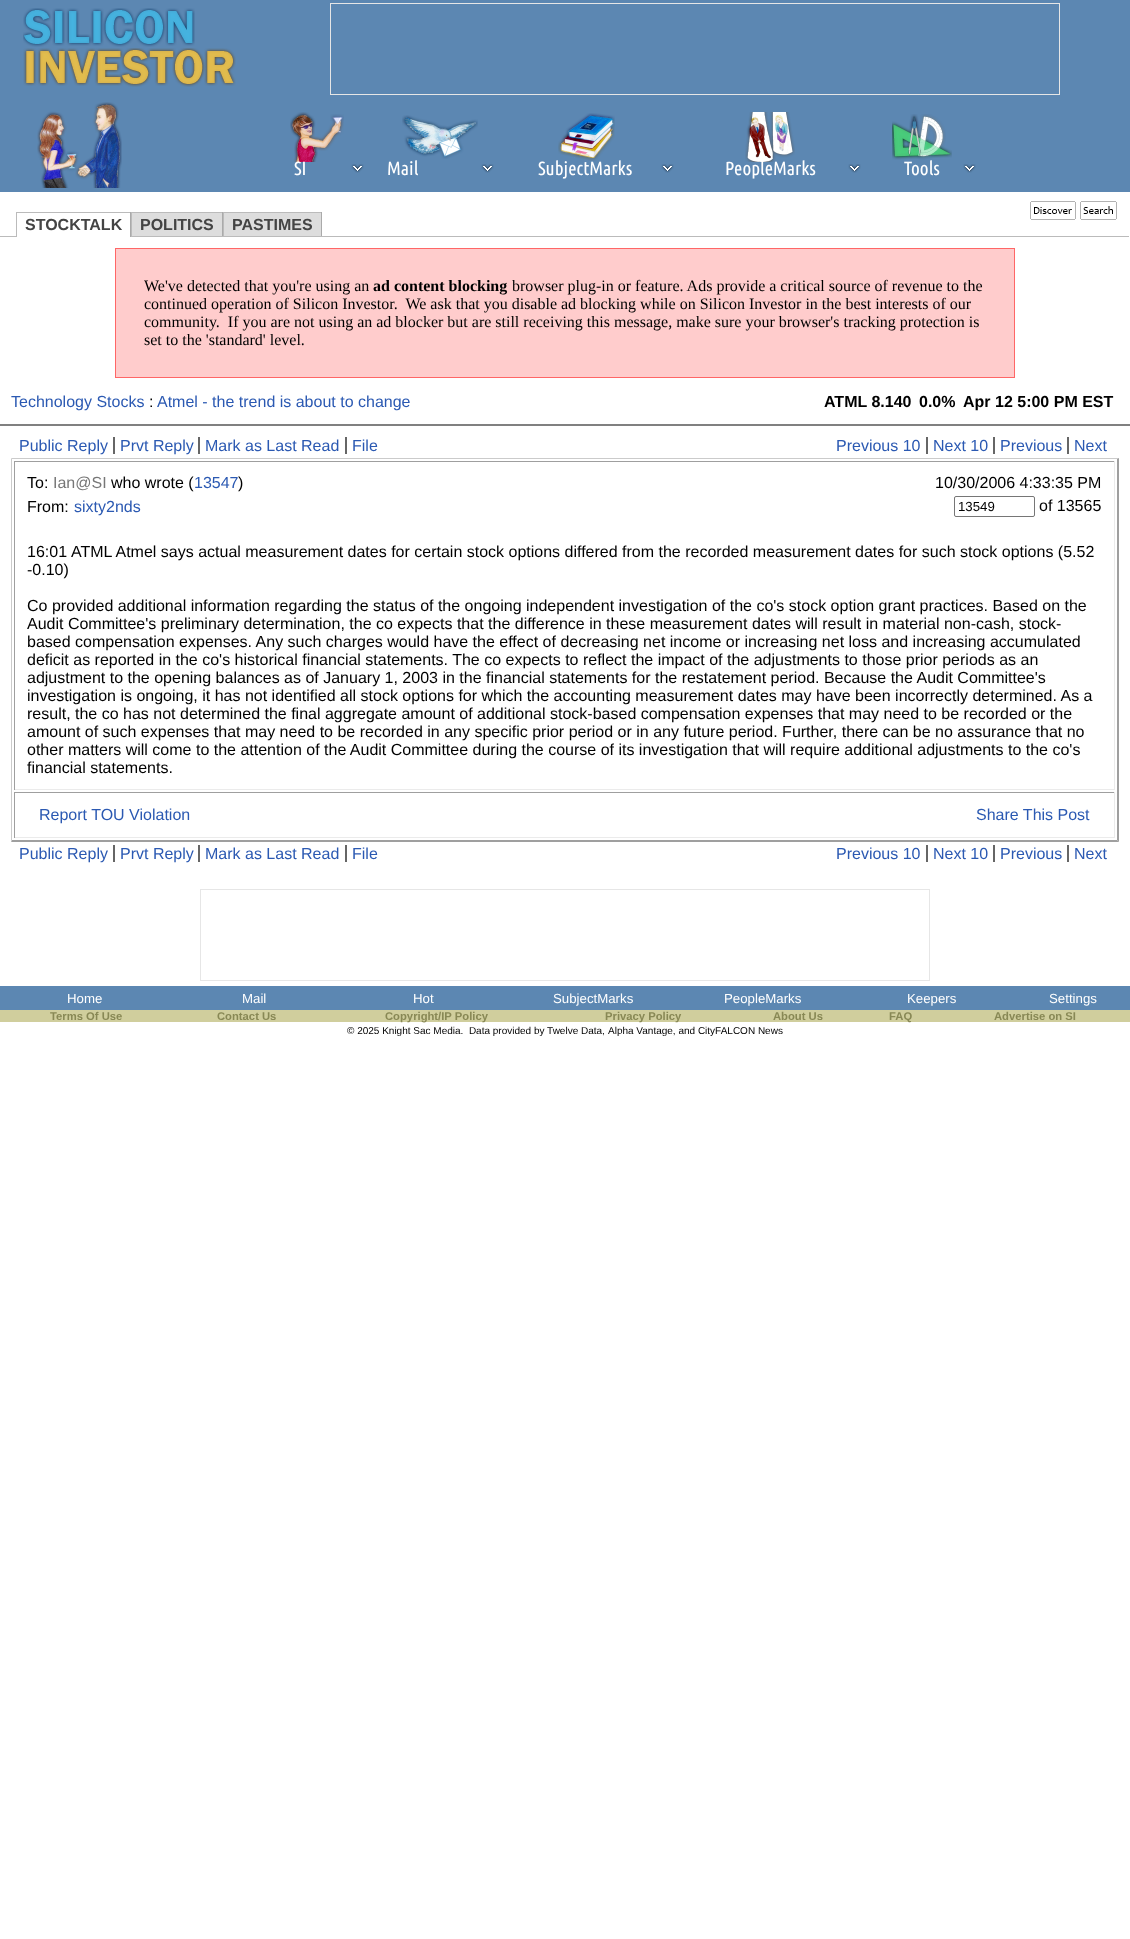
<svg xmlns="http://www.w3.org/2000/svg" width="1130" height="1939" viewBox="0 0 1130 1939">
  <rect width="100%" height="100%" fill="rgb(255,255,255)"/>
  <rect x="0" y="0" width="1130" height="192" fill="rgb(92,135,178)"/>
  <image x="23" y="8" width="213" height="79" href="pic1.png"/>
  <rect x="330.5" y="3.5" width="729" height="91" fill="none" stroke="rgb(230,230,230)"/>
  <image x="37" y="102" width="85" height="86" href="pic2.png"/>
  <image x="290" y="112" width="54" height="50" href="pic3.png"/>
  <image x="351" y="164" width="13" height="9" href="pic4.png"/>
  <text x="294" y="175" font-family="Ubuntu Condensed" font-size="19" fill="rgb(255,255,255)">SI</text>
  <image x="402" y="115" width="76" height="44" href="pic5.png"/>
  <image x="481" y="164" width="13" height="9" href="pic4.png"/>
  <text x="387" y="175" font-family="Ubuntu Condensed" font-size="19" fill="rgb(255,255,255)">Mail</text>
  <image x="558" y="113" width="57" height="48" href="pic6.png"/>
  <image x="661" y="164" width="13" height="9" href="pic4.png"/>
  <text x="538" y="175" font-family="Ubuntu Condensed" font-size="19" fill="rgb(255,255,255)">SubjectMarks</text>
  <image x="745" y="112" width="50" height="50" href="pic7.png"/>
  <image x="848" y="164" width="13" height="9" href="pic4.png"/>
  <text x="725" y="175" font-family="Ubuntu Condensed" font-size="19" fill="rgb(255,255,255)">PeopleMarks</text>
  <image x="892" y="114" width="60" height="46" href="pic8.png"/>
  <image x="963" y="164" width="13" height="9" href="pic4.png"/>
  <text x="904" y="175" font-family="Ubuntu Condensed" font-size="19" fill="rgb(255,255,255)">Tools</text>
  <image x="1030" y="201" width="46" height="19" href="pic9.png"/>
  <image x="1080" y="201" width="37" height="19" href="pic10.png"/>
  <rect x="16" y="212" width="306" height="1" fill="rgb(187,187,187)"/>
  <rect x="222" y="212" width="1" height="25" fill="rgb(170,170,170)"/>
  <rect x="131" y="212" width="1" height="25" fill="rgb(187,187,187)"/>
  <rect x="321" y="212" width="1" height="25" fill="rgb(170,170,170)"/>
  <rect x="223" y="212" width="1" height="25" fill="rgb(187,187,187)"/>
  <rect x="0" y="236" width="1129" height="1" fill="rgb(187,187,187)"/>
  <rect x="17" y="236" width="113" height="1" fill="rgb(255,255,255)"/>
  <rect x="130" y="212" width="1" height="25" fill="rgb(170,170,170)"/>
  <rect x="16" y="212" width="1" height="25" fill="rgb(187,187,187)"/>
  <text x="25" y="230" font-family="Liberation Sans" font-size="16" font-weight="bold" fill="rgb(68,68,68)">STOCKTALK</text>
  <rect x="132" y="213" width="90" height="23" fill="rgb(221,221,221)"/>
  <text x="140" y="230" font-family="Liberation Sans" font-size="16" font-weight="bold" fill="rgb(68,68,68)">POLITICS</text>
  <rect x="224" y="213" width="97" height="23" fill="rgb(221,221,221)"/>
  <text x="232" y="230" font-family="Liberation Sans" font-size="16" font-weight="bold" fill="rgb(68,68,68)">PASTIMES</text>
  <rect x="115.5" y="248.5" width="899" height="129" fill="rgb(255,204,204)" stroke="rgb(255,102,102)"/>
  <text x="144" y="291" font-family="Liberation Serif" font-size="16" fill="rgb(0,0,0)">We've detected that you're using an</text>
  <text x="373" y="291" font-family="Liberation Serif" font-size="16" font-weight="bold" fill="rgb(0,0,0)">ad content blocking</text>
  <g font-family="Liberation Serif" font-size="16" fill="rgb(0,0,0)">
    <text x="512" y="291">browser plug-in or feature. Ads provide a critical source of revenue to the</text>
    <text xml:space="preserve"><tspan x="144" y="309">continued operation of Silicon Investor.  We ask that you disable ad blocking while on Silicon Investor in the best interests of our</tspan><tspan x="144" y="327">community.  If you are not using an ad blocker but are still receiving this message, make sure your browser's tracking protection is</tspan><tspan x="144" y="345">set to the 'standard' level.</tspan></text>
  </g>
  <text x="11" y="407" font-family="Liberation Sans" font-size="16" fill="rgb(43,89,178)">Technology Stocks</text>
  <text x="149" y="407" font-family="Liberation Sans" font-size="16" fill="rgb(0,0,0)">:</text>
  <text x="157" y="407" font-family="Liberation Sans" font-size="16" fill="rgb(43,89,178)">Atmel - the trend is about to change</text>
  <g font-family="Liberation Sans" font-size="16" font-weight="bold" fill="rgb(0,0,0)">
    <text x="824" y="407">ATML 8.140</text>
    <text x="919" y="407">0.0%</text>
    <text x="963" y="407">Apr 12 5:00 PM EST</text>
  </g>
  <rect x="0" y="424" width="1130" height="2" fill="rgb(128,128,128)"/>
  <g font-family="Liberation Sans" font-size="16" fill="rgb(43,89,178)">
    <text x="19" y="451">Public Reply</text>
    <text x="120" y="451">Prvt Reply</text>
  </g>
  <rect x="113" y="437" width="2" height="17" fill="rgb(102,102,102)"/>
  <text x="205" y="451" font-family="Liberation Sans" font-size="16" fill="rgb(43,89,178)">Mark as Last Read</text>
  <rect x="198" y="437" width="2" height="17" fill="rgb(102,102,102)"/>
  <text x="352" y="451" font-family="Liberation Sans" font-size="16" fill="rgb(43,89,178)">File</text>
  <rect x="345" y="437" width="2" height="17" fill="rgb(102,102,102)"/>
  <text x="836" y="451" font-family="Liberation Sans" font-size="16" fill="rgb(43,89,178)">Previous 10</text>
  <rect x="926" y="437" width="2" height="17" fill="rgb(102,102,102)"/>
  <text x="933" y="451" font-family="Liberation Sans" font-size="16" fill="rgb(43,89,178)">Next 10</text>
  <rect x="993" y="437" width="2" height="17" fill="rgb(102,102,102)"/>
  <text x="1000" y="451" font-family="Liberation Sans" font-size="16" fill="rgb(43,89,178)">Previous</text>
  <rect x="1067" y="437" width="2" height="17" fill="rgb(102,102,102)"/>
  <text x="1074" y="451" font-family="Liberation Sans" font-size="16" fill="rgb(43,89,178)">Next</text>
  <path d="M11 458H1119L1117 459H12Z" fill="rgb(203,203,203)"/>
  <path d="M1119 458V842L1117 840V459Z" fill="rgb(159,159,159)"/>
  <path d="M1119 842H11L12 840H1117Z" fill="rgb(159,159,159)"/>
  <path d="M11 842V458L12 459V840Z" fill="rgb(203,203,203)"/>
  <rect x="14" y="461" width="1101" height="1" fill="rgb(159,159,159)"/>
  <rect x="1114" y="461" width="1" height="329" fill="rgb(235,235,235)"/>
  <rect x="14" y="789" width="1101" height="1" fill="rgb(235,235,235)"/>
  <rect x="14" y="461" width="1" height="329" fill="rgb(159,159,159)"/>
  <text x="27" y="488" font-family="Liberation Sans" font-size="16" fill="rgb(0,0,0)">To:</text>
  <text x="53" y="488" font-family="Liberation Sans" font-size="16" fill="rgb(119,119,119)">Ian@SI</text>
  <text x="111" y="488" font-family="Liberation Sans" font-size="16" fill="rgb(0,0,0)">who wrote (</text>
  <text x="194" y="488" font-family="Liberation Sans" font-size="16" fill="rgb(43,89,178)">13547</text>
  <g font-family="Liberation Sans" font-size="16" fill="rgb(0,0,0)">
    <text x="238" y="488">)</text>
    <text x="935" y="488">10/30/2006 4:33:35 PM</text>
    <text x="27" y="512">From:</text>
  </g>
  <text x="74" y="512" font-family="Liberation Sans" font-size="16" fill="rgb(43,89,178)">sixty2nds</text>
  <rect x="954.5" y="496.5" width="80" height="20" rx="1.5" fill="none" stroke="rgb(118,118,118)"/>
  <text x="958" y="511" font-family="Liberation Sans" font-size="13.25" fill="rgb(0,0,0)">13549</text>
  <g font-family="Liberation Sans" font-size="16" fill="rgb(0,0,0)">
    <text x="1039" y="511">of 13565</text>
    <text x="27" y="557">16:01</text>
    <text x="71" y="557">ATML Atmel says actual measurement dates for certain stock options differed from the recorded measurement dates for such stock options (5.52</text>
    <text x="27" y="575">-0.10)</text>
    <text>
      <tspan x="27" y="611">Co provided additional information regarding the status of the ongoing independent investigation of the co's stock option grant practices. Based on the</tspan>
      <tspan x="27" y="629">Audit Committee's preliminary determination, the co expects that the difference in these measurement dates will result in material non-cash, stock-</tspan>
      <tspan x="27" y="647">based compensation expenses. Any such charges would have the effect of decreasing net income or increasing net loss and increasing accumulated</tspan>
      <tspan x="27" y="665">deficit as reported in the co's historical financial statements. The co expects to reflect the impact of the adjustments to those prior periods as an</tspan>
      <tspan x="27" y="683">adjustment to the opening balances as of January 1, 2003 in the financial statements for the restatement period. Because the Audit Committee's</tspan>
      <tspan x="27" y="701">investigation is ongoing, it has not identified all stock options for which the accounting measurement dates may have been incorrectly determined. As a</tspan>
      <tspan x="27" y="719">result, the co has not determined the final aggregate amount of additional stock-based compensation expenses that may need to be recorded or the</tspan>
      <tspan x="27" y="737">amount of such expenses that may need to be recorded in any specific prior period or in any future period. Further, there can be no assurance that no</tspan>
      <tspan x="27" y="755">other matters will come to the attention of the Audit Committee during the course of its investigation that will require additional adjustments to the co's</tspan>
      <tspan x="27" y="773">financial statements.</tspan>
    </text>
  </g>
  <rect x="14" y="792" width="1101" height="1" fill="rgb(159,159,159)"/>
  <rect x="1114" y="792" width="1" height="46" fill="rgb(235,235,235)"/>
  <rect x="14" y="837" width="1101" height="1" fill="rgb(235,235,235)"/>
  <rect x="14" y="792" width="1" height="46" fill="rgb(159,159,159)"/>
  <g font-family="Liberation Sans" font-size="16" fill="rgb(43,89,178)">
    <text x="39" y="820">Report TOU Violation</text>
    <text x="976" y="820">Share This Post</text>
    <text x="19" y="859">Public Reply</text>
    <text x="120" y="859">Prvt Reply</text>
  </g>
  <rect x="113" y="845" width="2" height="17" fill="rgb(102,102,102)"/>
  <text x="205" y="859" font-family="Liberation Sans" font-size="16" fill="rgb(43,89,178)">Mark as Last Read</text>
  <rect x="198" y="845" width="2" height="17" fill="rgb(102,102,102)"/>
  <text x="352" y="859" font-family="Liberation Sans" font-size="16" fill="rgb(43,89,178)">File</text>
  <rect x="345" y="845" width="2" height="17" fill="rgb(102,102,102)"/>
  <text x="836" y="859" font-family="Liberation Sans" font-size="16" fill="rgb(43,89,178)">Previous 10</text>
  <rect x="926" y="845" width="2" height="17" fill="rgb(102,102,102)"/>
  <text x="933" y="859" font-family="Liberation Sans" font-size="16" fill="rgb(43,89,178)">Next 10</text>
  <rect x="993" y="845" width="2" height="17" fill="rgb(102,102,102)"/>
  <text x="1000" y="859" font-family="Liberation Sans" font-size="16" fill="rgb(43,89,178)">Previous</text>
  <rect x="1067" y="845" width="2" height="17" fill="rgb(102,102,102)"/>
  <text x="1074" y="859" font-family="Liberation Sans" font-size="16" fill="rgb(43,89,178)">Next</text>
  <rect x="200.5" y="889.5" width="729" height="91" fill="none" stroke="rgb(230,230,230)"/>
  <rect x="0" y="986" width="1130" height="24" fill="rgb(92,135,178)"/>
  <g font-family="Liberation Sans" font-size="13.25" fill="rgb(255,255,255)">
    <text x="67" y="1003">Home</text>
    <text x="242" y="1003">Mail</text>
    <text x="413" y="1003">Hot</text>
    <text x="553" y="1003">SubjectMarks</text>
    <text x="724" y="1003">PeopleMarks</text>
    <text x="907" y="1003">Keepers</text>
    <text x="1049" y="1003">Settings</text>
  </g>
  <rect x="0" y="1010" width="1130" height="12" fill="rgb(208,206,157)"/>
  <g font-family="Liberation Sans" font-size="11.25" font-weight="bold" fill="rgb(136,136,85)">
    <text x="50" y="1020">Terms Of Use</text>
    <text x="217" y="1020">Contact Us</text>
    <text x="385" y="1020">Copyright/IP Policy</text>
    <text x="605" y="1020">Privacy Policy</text>
    <text x="773" y="1020">About Us</text>
    <text x="889" y="1020">FAQ</text>
    <text x="994" y="1020">Advertise on SI</text>
  </g>
  <g font-family="Liberation Sans" font-size="10" fill="rgb(0,0,0)">
    <text x="347" y="1034" xml:space="preserve">© 2025 Knight Sac Media.  Data provided by Twelve Data,</text>
    <text x="608" y="1034">Alpha Vantage, and CityFALCON News</text>
  </g>
</svg>
